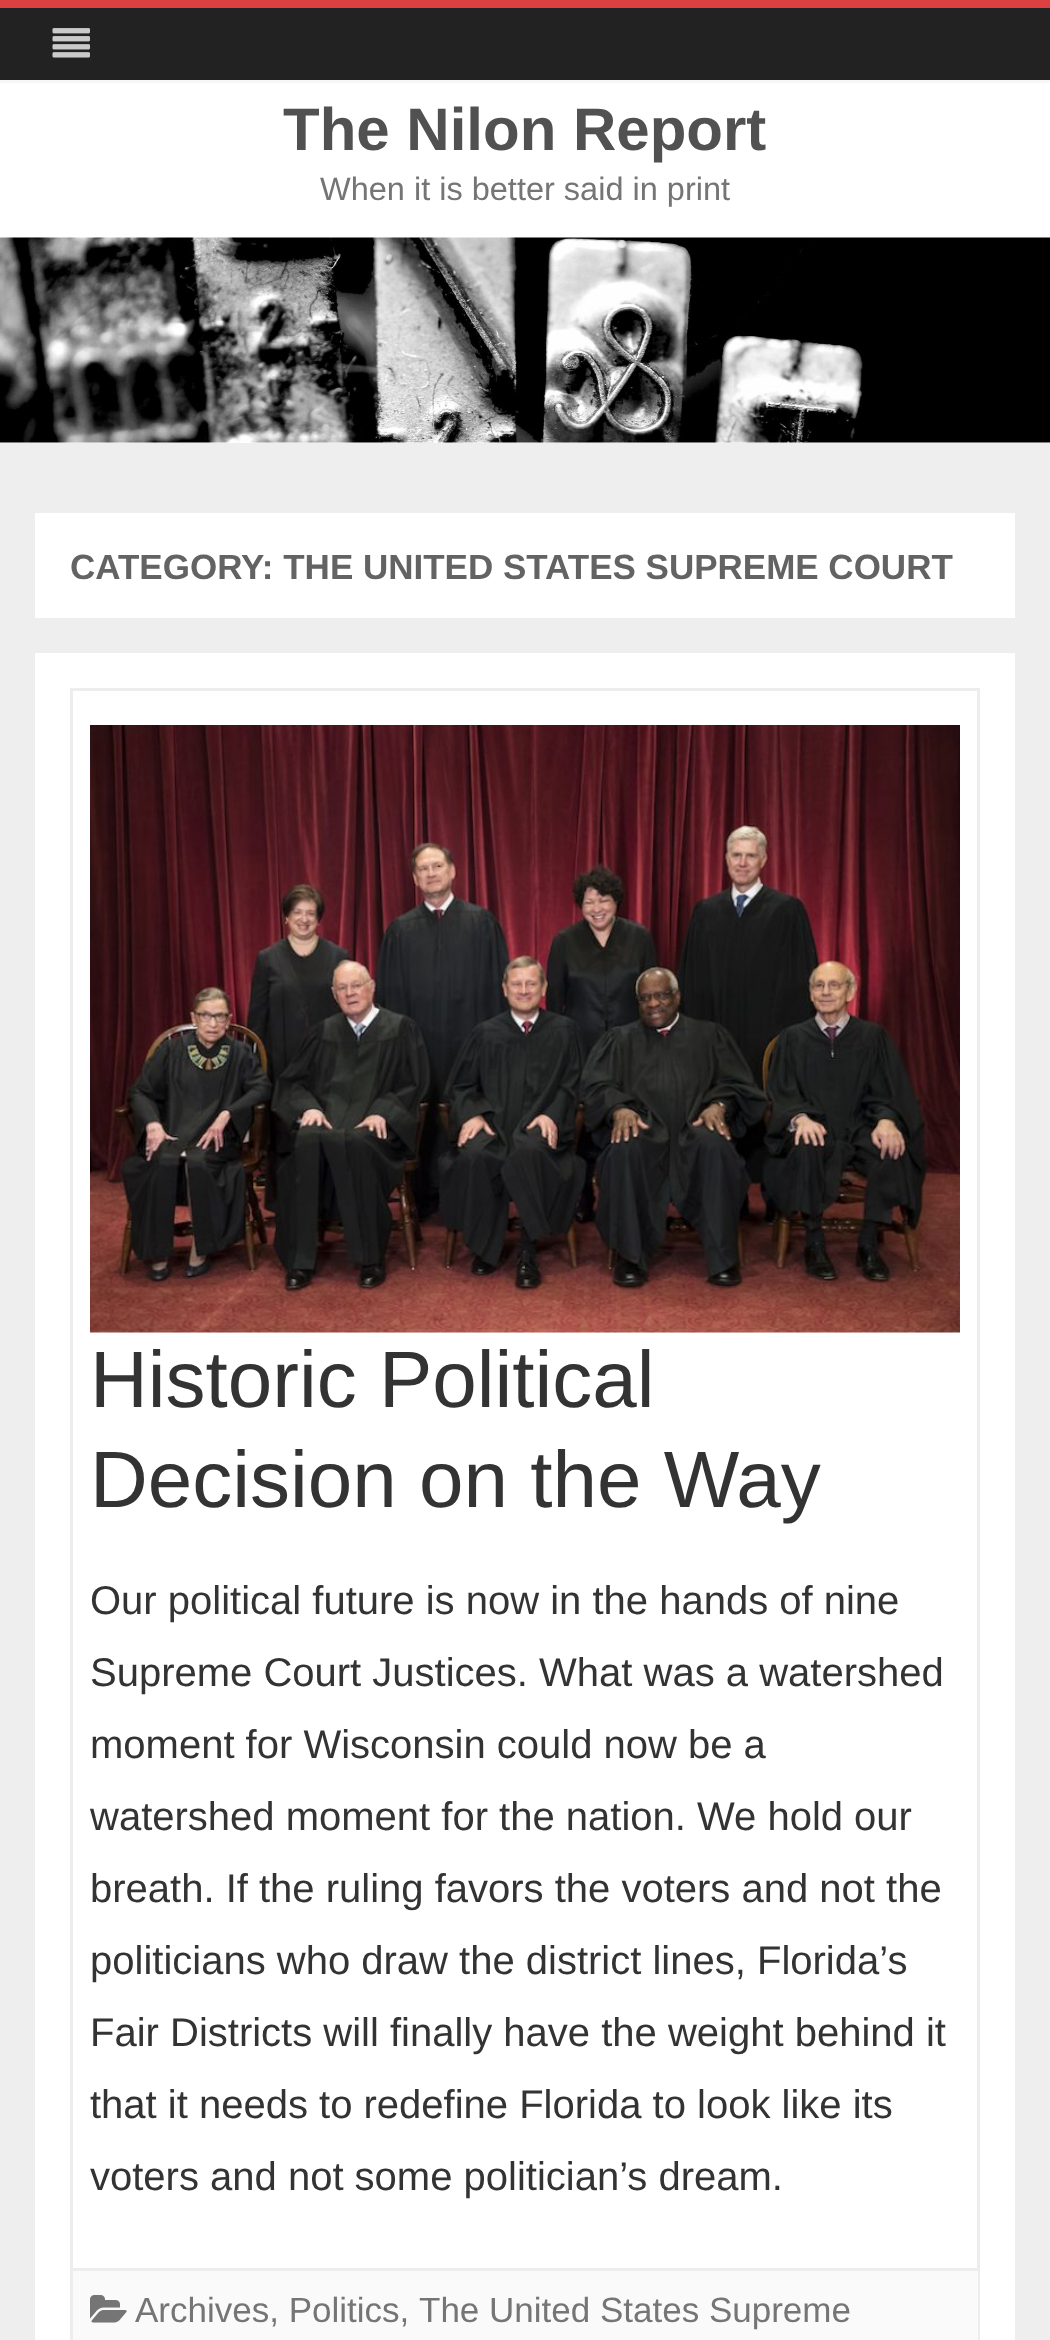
<svg xmlns="http://www.w3.org/2000/svg" width="1050" height="2340" viewBox="0 0 1050 2340">
  <rect width="100%" height="100%" fill="rgb(238,238,238)"/>
  <rect x="0" y="83" width="1050" height="360" fill="rgb(255,255,255)"/>
  <rect x="0" y="0" width="1050" height="8" fill="rgb(221,64,64)"/>
  <rect x="0" y="8" width="1050" height="72" fill="rgb(34,34,34)"/>
  <rect x="0" y="80" width="1050" height="3" fill="rgb(247,247,247)"/>
  <image x="52" y="28" width="38" height="30" href="pic1.png"/>
  <text x="283" y="150" font-family="Arimo" font-size="60" font-weight="bold" fill="rgb(81,81,81)">The Nilon Report</text>
  <text x="320" y="200" font-family="Arimo" font-size="32.5" fill="rgb(117,117,117)">When it is better said in print</text>
  <image x="0" y="237" width="1050" height="206" href="pic2.png"/>
  <rect x="35" y="513" width="980" height="105" fill="rgb(255,255,255)"/>
  <text x="70" y="579" font-family="Arimo" font-size="35" font-weight="bold" fill="rgb(99,99,99)">CATEGORY: THE UNITED STATES SUPREME COURT</text>
  <rect x="35" y="653" width="980" height="1687" fill="rgb(255,255,255)"/>
  <rect x="71.5" y="689.5" width="907" height="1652" fill="none" stroke="rgb(237,237,237)" stroke-width="3"/>
  <image x="90" y="725" width="870" height="608" href="pic3.png"/>
  <g font-family="Arimo" font-size="80" fill="rgb(51,51,51)">
    <text>
      <tspan x="90" y="1407">Historic Political</tspan>
      <tspan x="90" y="1507">Decision on the Way</tspan>
    </text>
  </g>
  <g font-family="Arimo" font-size="40" fill="rgb(51,51,51)">
    <text>
      <tspan x="90" y="1614">Our political future is now in the hands of nine</tspan>
      <tspan x="90" y="1686">Supreme Court Justices. What was a watershed</tspan>
      <tspan x="90" y="1758">moment for Wisconsin could now be a</tspan>
      <tspan x="90" y="1830">watershed moment for the nation. We hold our</tspan>
      <tspan x="90" y="1902">breath. If the ruling favors the voters and not the</tspan>
      <tspan x="90" y="1974">politicians who draw the district lines, Florida’s</tspan>
      <tspan x="90" y="2046">Fair Districts will finally have the weight behind it</tspan>
      <tspan x="90" y="2118">that it needs to redefine Florida to look like its</tspan>
      <tspan x="90" y="2190">voters and not some politician’s dream.</tspan>
    </text>
  </g>
  <rect x="73" y="2271" width="905" height="69" fill="rgb(250,250,250)"/>
  <rect x="73" y="2268" width="905" height="3" fill="rgb(237,237,237)"/>
  <image x="90" y="2295" width="37" height="28" href="pic4.png"/>
  <g font-family="Arimo" font-size="35" fill="rgb(117,117,117)">
    <text x="135" y="2322">Archives, Politics,</text>
    <text x="419" y="2322">The United States Supreme</text>
  </g>
</svg>
